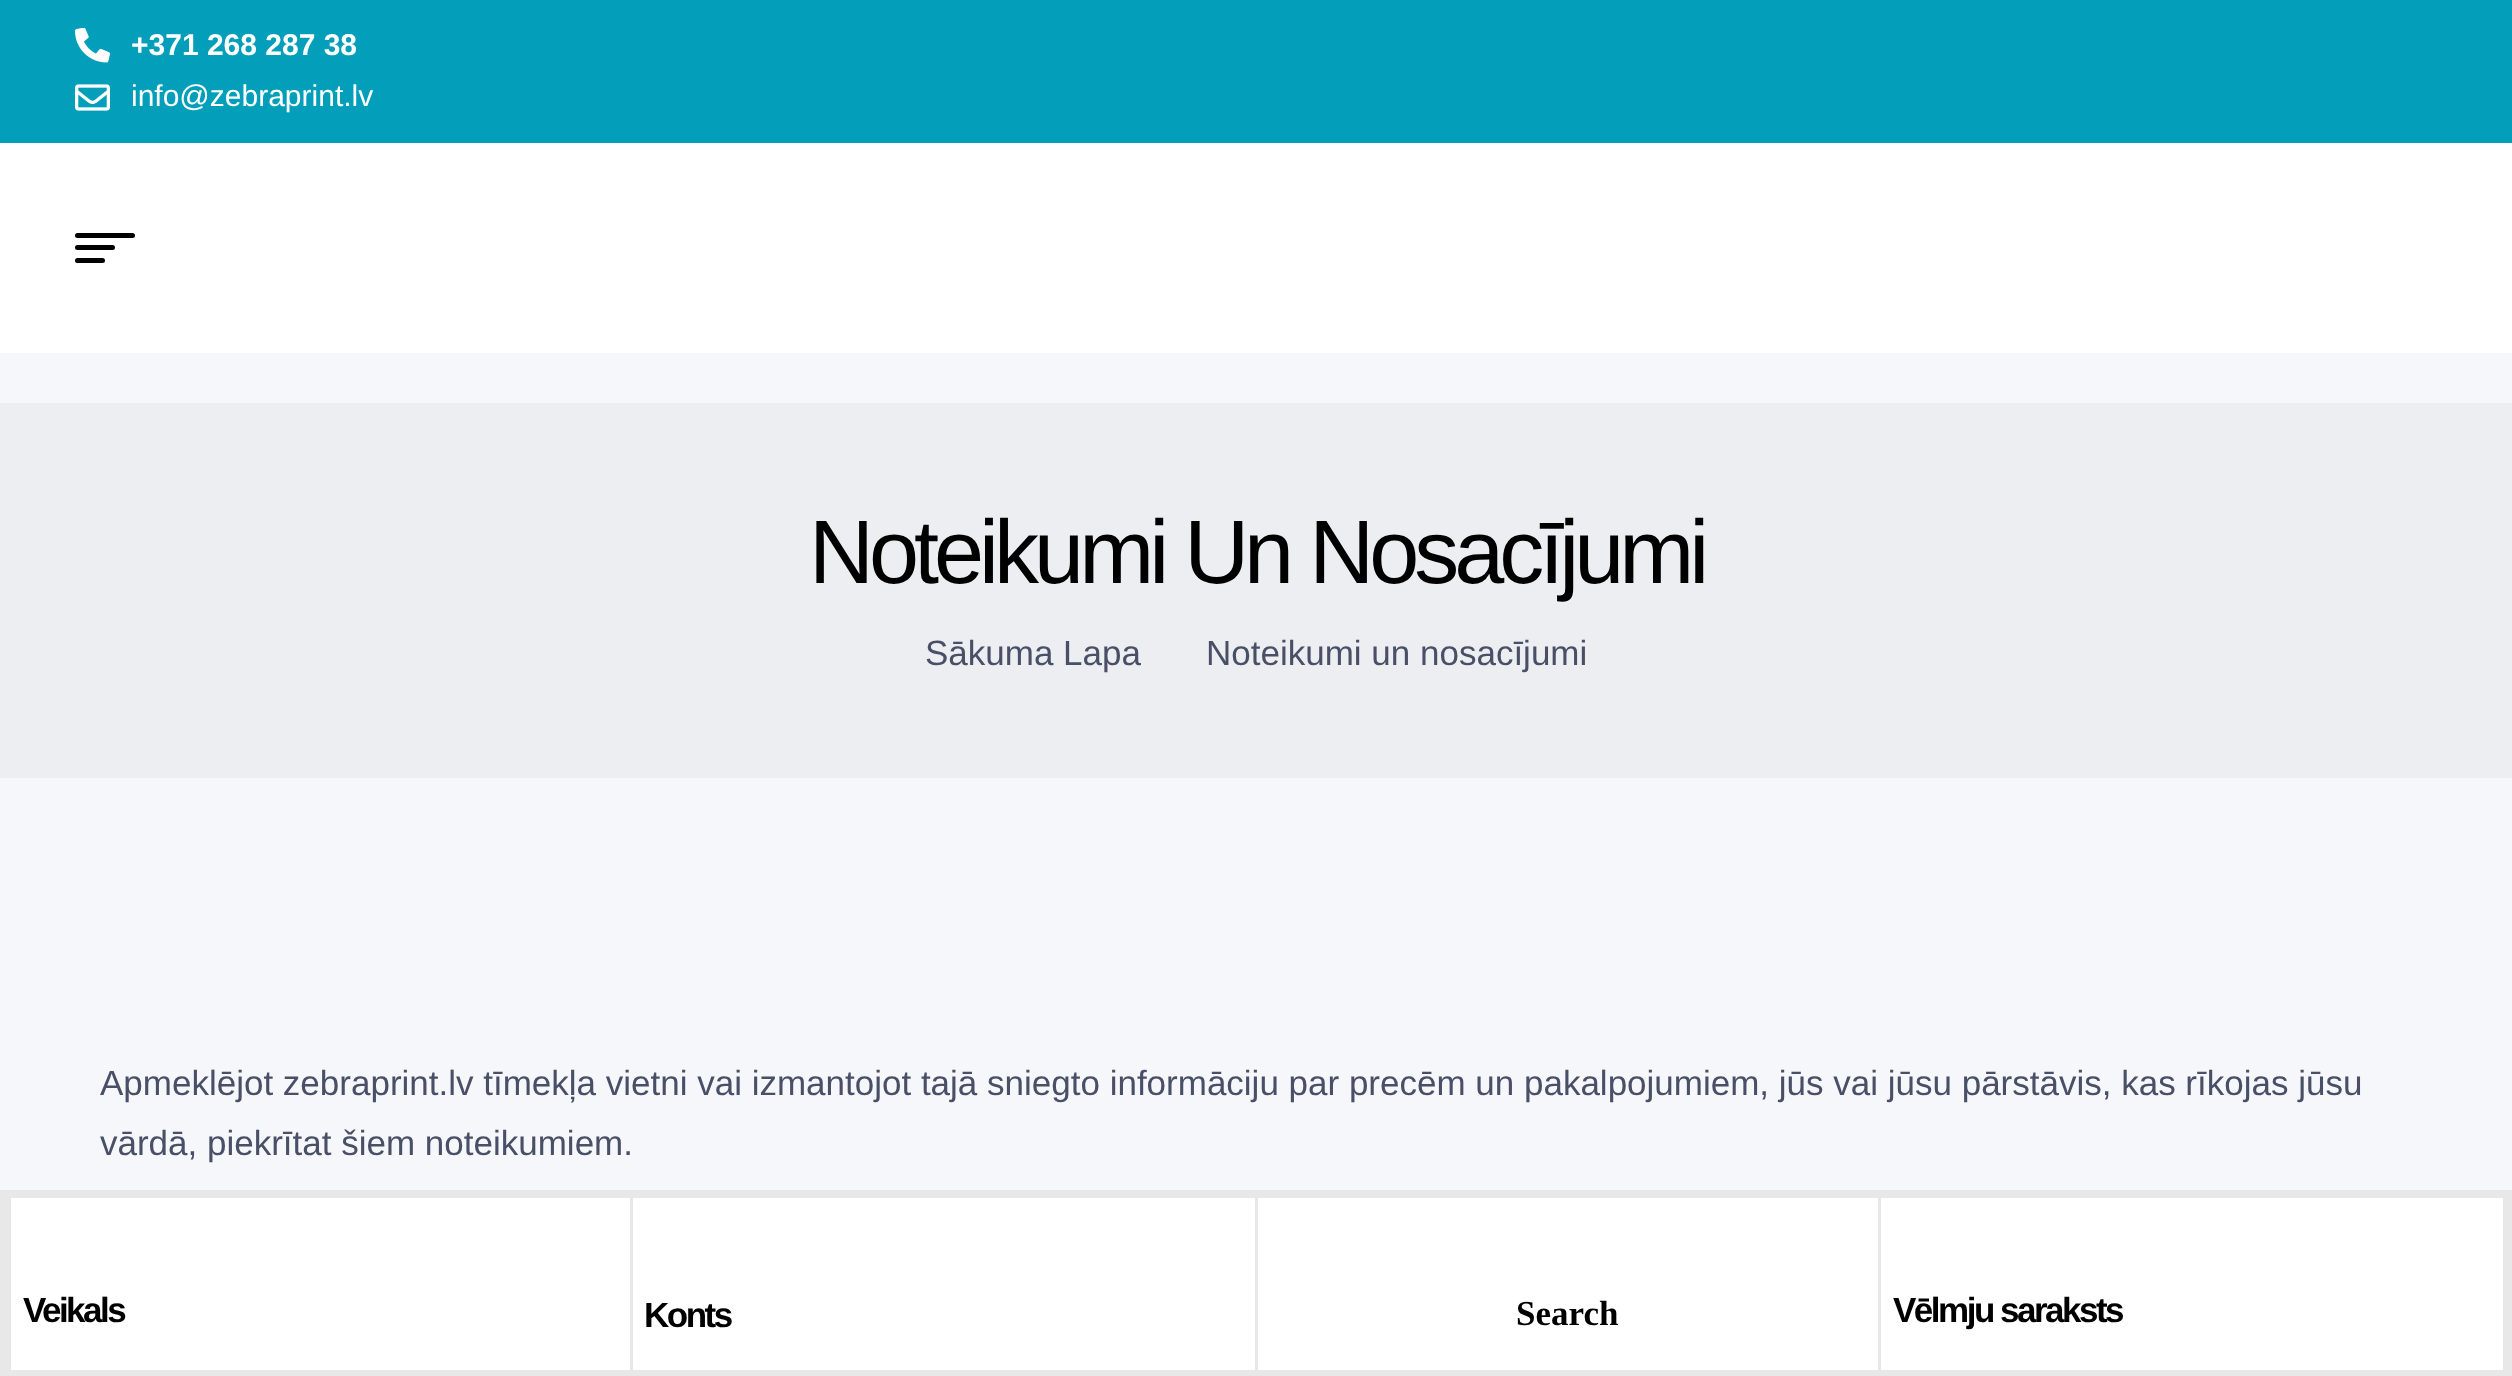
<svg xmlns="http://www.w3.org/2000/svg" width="2512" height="1376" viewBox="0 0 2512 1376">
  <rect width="100%" height="100%" fill="rgb(245,247,250)"/>
  <rect x="0" y="0" width="2512" height="143" fill="rgb(3,159,186)"/>
  <image x="75" y="28" width="35" height="35" href="pic1.png"/>
  <text x="131" y="55" font-family="Liberation Sans" font-size="30" font-weight="bold" fill="rgb(255,255,255)">+371 268 287 38</text>
  <image x="75" y="84" width="35" height="27" href="pic2.png"/>
  <text x="131" y="106" font-family="Liberation Sans" font-size="30" fill="rgb(255,255,255)">info@zebraprint.lv</text>
  <rect x="0" y="143" width="2512" height="210" fill="rgb(255,255,255)"/>
  <rect x="75" y="233" width="60" height="5" rx="2.5" fill="rgb(0,0,0)"/>
  <rect x="75" y="245" width="40" height="5" rx="2.5" fill="rgb(0,0,0)"/>
  <rect x="75" y="258" width="30" height="5" rx="2.5" fill="rgb(0,0,0)"/>
  <rect x="0" y="403" width="2512" height="375" fill="rgb(237,238,241)"/>
  <text x="809" y="583" font-family="Liberation Sans" font-size="90" letter-spacing="-5" fill="rgb(0,0,0)">Noteikumi Un Nosacījumi</text>
  <g font-family="Liberation Sans" font-size="35" fill="rgb(73,79,102)">
    <text x="925" y="665">Sākuma Lapa</text>
    <text x="1206" y="665">Noteikumi un nosacījumi</text>
    <text>
      <tspan x="100" y="1095">Apmeklējot zebraprint.lv tīmekļa vietni vai izmantojot tajā sniegto informāciju par precēm un pakalpojumiem, jūs vai jūsu pārstāvis, kas rīkojas jūsu</tspan>
      <tspan x="100" y="1155">vārdā, piekrītat šiem noteikumiem.</tspan>
    </text>
  </g>
  <rect x="11" y="1198" width="2492" height="172" fill="rgb(255,255,255)"/>
  <rect x="4" y="1194" width="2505" height="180" fill="none" stroke="rgb(232,232,232)" stroke-width="8"/>
  <rect x="630" y="1198" width="3" height="172" fill="rgb(232,232,232)"/>
  <rect x="8" y="1198" width="3" height="172" fill="rgb(232,232,232)"/>
  <text x="23" y="1322" font-family="Liberation Sans" font-size="35" font-weight="bold" letter-spacing="-2.5" fill="rgb(0,0,0)">Veikals</text>
  <rect x="1255" y="1198" width="3" height="172" fill="rgb(232,232,232)"/>
  <text x="644" y="1327" font-family="Liberation Sans" font-size="35" font-weight="bold" letter-spacing="-2.5" fill="rgb(0,0,0)">Konts</text>
  <rect x="1878" y="1198" width="3" height="172" fill="rgb(232,232,232)"/>
  <text x="1516" y="1325" font-family="Liberation Serif" font-size="35" font-weight="bold" fill="rgb(0,0,0)">Search</text>
  <rect x="2503" y="1198" width="2" height="172" fill="rgb(232,232,232)"/>
  <text x="1893" y="1322" font-family="Liberation Sans" font-size="35" font-weight="bold" letter-spacing="-2.5" fill="rgb(0,0,0)">Vēlmju saraksts</text>
</svg>
